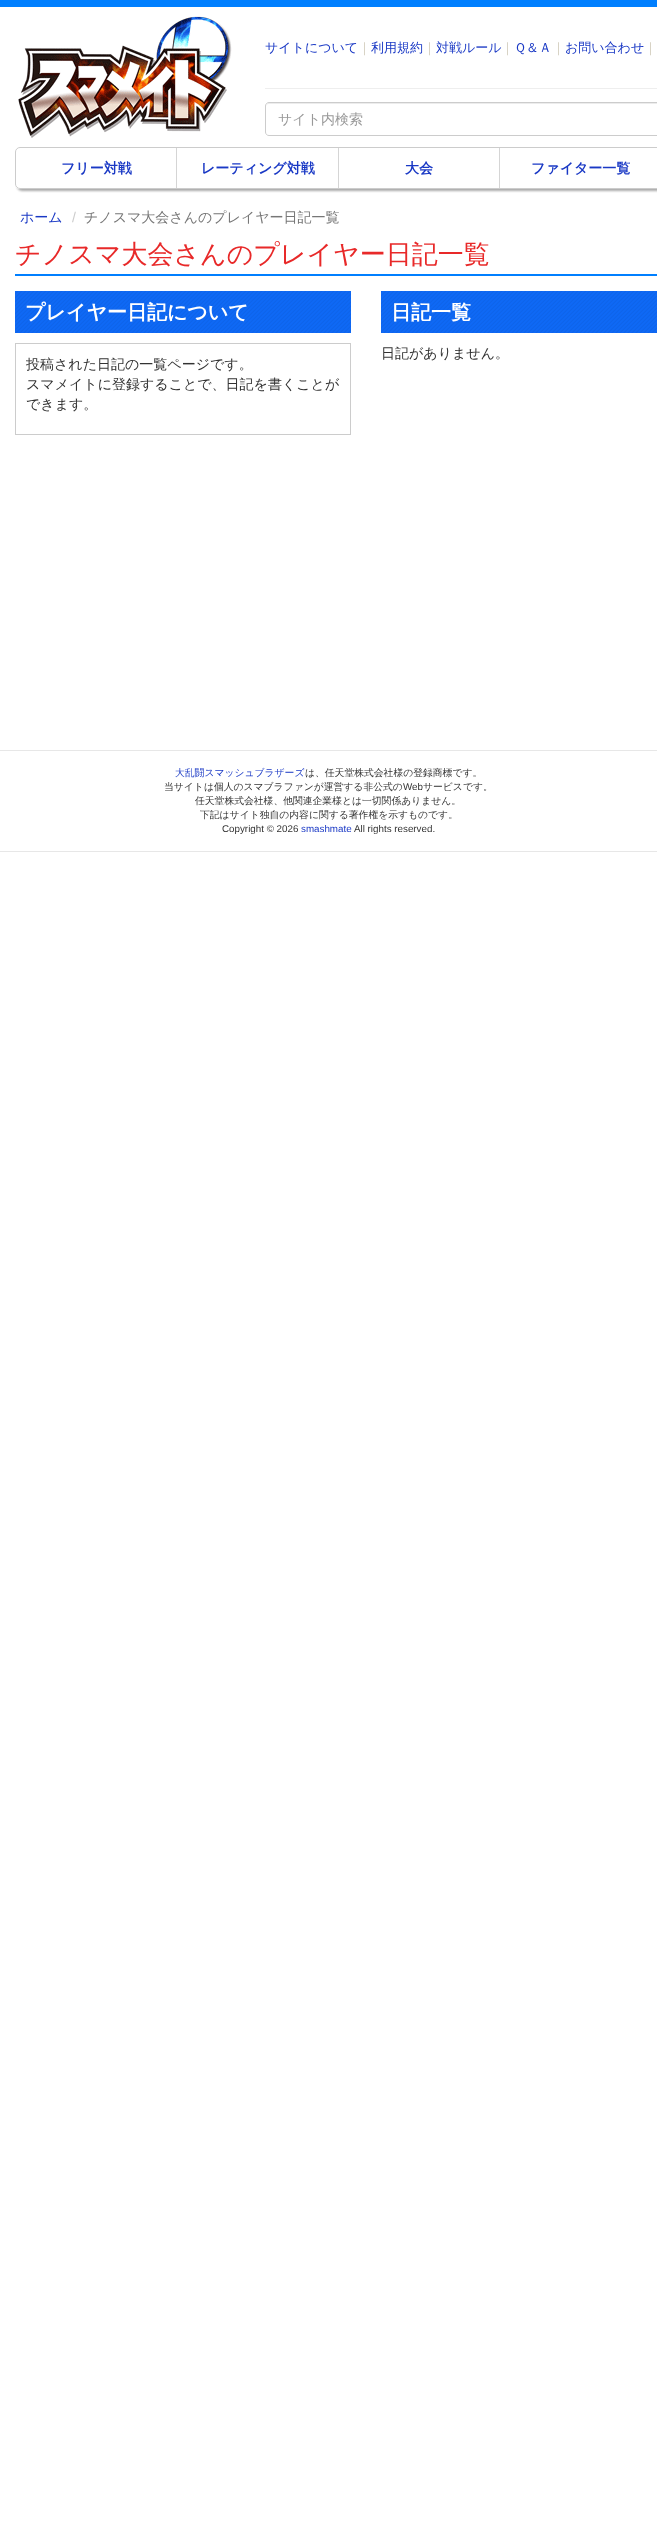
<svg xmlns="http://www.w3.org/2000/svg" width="657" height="2537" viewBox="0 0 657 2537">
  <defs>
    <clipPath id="clip1"><path d="M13 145H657V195H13ZM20 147H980C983 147 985 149 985 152V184C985 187 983 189 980 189H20C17 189 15 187 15 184V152C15 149 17 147 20 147Z" clip-rule="evenodd"/></clipPath>
  </defs>
  <rect width="100%" height="100%" fill="rgb(255,255,255)"/>
  <rect x="0" y="0" width="657" height="7" fill="rgb(0,127,255)"/>
  <image x="18" y="16" width="214" height="122" href="pic1.png"/>
  <text x="265" y="52" font-family="WenQuanYi Zen Hei" font-size="13" font-weight="500" fill="rgb(26,57,197)">サイトについて</text>
  <text x="358" y="52" font-family="WenQuanYi Zen Hei" font-size="13" font-weight="500" fill="rgb(207,201,183)">｜</text>
  <text x="371" y="52" font-family="WenQuanYi Zen Hei" font-size="13" font-weight="500" fill="rgb(26,57,197)">利用規約</text>
  <text x="423" y="52" font-family="WenQuanYi Zen Hei" font-size="13" font-weight="500" fill="rgb(207,201,183)">｜</text>
  <text x="436" y="52" font-family="WenQuanYi Zen Hei" font-size="13" font-weight="500" fill="rgb(26,57,197)">対戦ルール</text>
  <text x="501" y="52" font-family="WenQuanYi Zen Hei" font-size="13" font-weight="500" fill="rgb(207,201,183)">｜</text>
  <text x="514" y="52" font-family="WenQuanYi Zen Hei" font-size="13" font-weight="500" fill="rgb(26,57,197)">Ｑ＆Ａ</text>
  <text x="552" y="52" font-family="WenQuanYi Zen Hei" font-size="13" font-weight="500" fill="rgb(207,201,183)">｜</text>
  <text x="565" y="52" font-family="WenQuanYi Zen Hei" font-size="13" font-weight="500" fill="rgb(26,57,197)">お問い合わせ</text>
  <text x="644" y="52" font-family="WenQuanYi Zen Hei" font-size="13" font-weight="500" fill="rgb(207,201,183)">｜</text>
  <rect x="265" y="88" width="392" height="1" fill="rgb(238,238,238)"/>
  <path d="M269 104H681V103H269C267 103 266 105 266 107C266 105 267 104 269 104Z" fill="rgb(236,236,236)"/>
  <path d="M269 102.5H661.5V135.5H269C267 135.5 265.5 134 265.5 132V106C265.5 104 267 102.5 269 102.5Z" fill="none" stroke="rgb(204,204,204)"/>
  <text x="278" y="124" font-family="WenQuanYi Zen Hei" font-size="14" font-weight="500" fill="rgb(153,153,153)">サイト内検索</text>
  <g clip-path="url(#clip1)">
    <rect x="17" y="149" width="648" height="42" rx="5" fill="rgb(170,170,170)" filter="blur(1px)"/>
  </g>
  <rect x="15.5" y="147.5" width="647" height="41" rx="4.5" fill="none" stroke="rgb(204,204,204)"/>
  <rect x="176" y="148" width="1" height="40" fill="rgb(213,213,213)"/>
  <text x="61" y="173" font-family="WenQuanYi Zen Hei" font-size="14" font-weight="bold" fill="rgb(26,57,197)">フリー対戦</text>
  <rect x="338" y="148" width="1" height="40" fill="rgb(213,213,213)"/>
  <text x="201" y="173" font-family="WenQuanYi Zen Hei" font-size="14" font-weight="bold" fill="rgb(26,57,197)">レーティング対戦</text>
  <rect x="499" y="148" width="1" height="40" fill="rgb(213,213,213)"/>
  <g font-family="WenQuanYi Zen Hei" font-size="14" font-weight="bold" fill="rgb(26,57,197)">
    <text x="405" y="173">大会</text>
    <text x="531" y="173">ファイター一覧</text>
  </g>
  <text x="20" y="222" font-family="WenQuanYi Zen Hei" font-size="14" font-weight="500" fill="rgb(26,57,197)">ホーム</text>
  <text x="72" y="222" font-family="Liberation Sans" font-size="14" fill="rgb(204,204,204)">/</text>
  <text x="84" y="222" font-family="WenQuanYi Zen Hei" font-size="14" font-weight="500" fill="rgb(119,119,119)">チノスマ大会さんのプレイヤー日記一覧</text>
  <rect x="15" y="274" width="642" height="2" fill="rgb(0,127,255)"/>
  <text x="15" y="263" font-family="WenQuanYi Zen Hei" font-size="26" font-weight="500" fill="rgb(232,41,41)">チノスマ大会さんのプレイヤー日記一覧</text>
  <rect x="15" y="291" width="336" height="42" fill="rgb(15,105,245)"/>
  <image x="15" y="291" width="336" height="42" href="pic2.png"/>
  <text x="25" y="319" font-family="WenQuanYi Zen Hei" font-size="20" font-weight="bold" fill="rgb(255,255,255)">プレイヤー日記について</text>
  <rect x="15.5" y="343.5" width="335" height="91" fill="none" stroke="rgb(204,204,204)"/>
  <g font-family="WenQuanYi Zen Hei" font-size="14" font-weight="500" fill="rgb(51,51,51)">
    <text>
      <tspan x="26" y="369">投稿された日記の一覧ページです。</tspan>
      <tspan x="26" y="389">スマメイトに登録することで、日記を書くことが</tspan>
      <tspan x="26" y="409">できます。</tspan>
    </text>
  </g>
  <rect x="381" y="291" width="276" height="42" fill="rgb(15,105,245)"/>
  <image x="381" y="291" width="276" height="42" href="pic3.png"/>
  <text x="391" y="319" font-family="WenQuanYi Zen Hei" font-size="20" font-weight="bold" fill="rgb(255,255,255)">日記一覧</text>
  <text x="381" y="358" font-family="WenQuanYi Zen Hei" font-size="14" font-weight="500" fill="rgb(51,51,51)">日記がありません。</text>
  <rect x="0" y="750" width="657" height="1" fill="rgb(231,231,231)"/>
  <rect x="0" y="851" width="657" height="1" fill="rgb(231,231,231)"/>
  <text x="175" y="776" font-family="WenQuanYi Zen Hei" font-size="9.8" font-weight="500" fill="rgb(26,57,197)">大乱闘スマッシュブラザーズ</text>
  <g font-family="WenQuanYi Zen Hei" font-size="9.8" font-weight="500" fill="rgb(51,51,51)">
    <text x="305" y="776">は、任天堂株式会社様の登録商標です。</text>
    <text x="164" y="790">当サイトは個人のスマブラファンが運営する非公式の</text>
  </g>
  <text x="403" y="790" font-family="Liberation Sans" font-size="9.8" fill="rgb(51,51,51)">Web</text>
  <g font-family="WenQuanYi Zen Hei" font-size="9.8" font-weight="500" fill="rgb(51,51,51)">
    <text x="423" y="790">サービスです。</text>
    <text x="195" y="804">任天堂株式会社様、他関連企業様とは一切関係ありません。</text>
    <text x="200" y="818">下記はサイト独自の内容に関する著作権を示すものです。</text>
  </g>
  <text x="222" y="832" font-family="Liberation Sans" font-size="9.8" fill="rgb(51,51,51)">Copyright © 2026</text>
  <text x="301" y="832" font-family="Liberation Sans" font-size="9.8" fill="rgb(26,57,197)">smashmate</text>
  <text x="354" y="832" font-family="Liberation Sans" font-size="9.8" fill="rgb(51,51,51)">All rights reserved.</text>
</svg>
